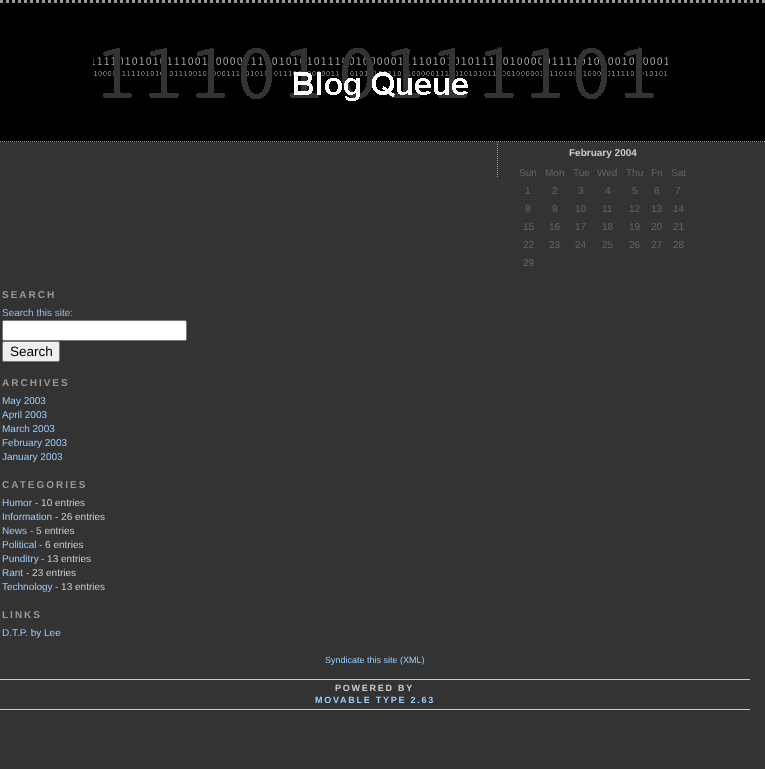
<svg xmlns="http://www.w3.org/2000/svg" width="765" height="769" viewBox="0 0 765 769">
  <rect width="100%" height="100%" fill="rgb(51,51,51)"/>
  <rect x="0" y="0" width="765" height="142" fill="rgb(0,0,0)"/>
  <path d="M0 1.5H765" fill="none" stroke="rgb(153,153,153)" stroke-width="3" stroke-dasharray="3 3"/>
  <path d="M0 141.5H765" fill="none" stroke="rgb(153,153,153)" stroke-dasharray="1 1"/>
  <image x="93" y="47" width="575" height="54" href="pic1.png"/>
  <path d="M497.5 142V177" fill="none" stroke="rgb(153,153,153)" stroke-dasharray="1 1"/>
  <text x="569" y="156" font-family="Liberation Sans" font-size="10" font-weight="bold" fill="rgb(204,204,204)">February 2004</text>
  <g font-family="Liberation Sans" font-size="10" fill="rgb(102,102,102)">
    <text x="519" y="176">Sun</text>
    <text x="545" y="176">Mon</text>
    <text x="573" y="176">Tue</text>
    <text x="597" y="176">Wed</text>
    <text x="626" y="176">Thu</text>
    <text x="651" y="176">Fri</text>
    <text x="671" y="176">Sat</text>
    <text x="525" y="194">1</text>
    <text x="552" y="194">2</text>
    <text x="578" y="194">3</text>
    <text x="605" y="194">4</text>
    <text x="632" y="194">5</text>
    <text x="654" y="194">6</text>
    <text x="675" y="194">7</text>
    <text x="525" y="212">8</text>
    <text x="552" y="212">9</text>
    <text x="575" y="212">10</text>
    <text x="602" y="212">11</text>
    <text x="629" y="212">12</text>
    <text x="651" y="212">13</text>
    <text x="673" y="212">14</text>
    <text x="523" y="230">15</text>
    <text x="549" y="230">16</text>
    <text x="575" y="230">17</text>
    <text x="602" y="230">18</text>
    <text x="629" y="230">19</text>
    <text x="651" y="230">20</text>
    <text x="673" y="230">21</text>
    <text x="523" y="248">22</text>
    <text x="549" y="248">23</text>
    <text x="575" y="248">24</text>
    <text x="602" y="248">25</text>
    <text x="629" y="248">26</text>
    <text x="651" y="248">27</text>
    <text x="673" y="248">28</text>
    <text x="523" y="266">29</text>
  </g>
  <text x="2" y="298" font-family="Liberation Sans" font-size="10" font-weight="bold" letter-spacing="2" fill="rgb(153,153,153)">SEARCH</text>
  <text x="2" y="316" font-family="Liberation Sans" font-size="10" fill="rgb(145,192,239)">Search this site:</text>
  <rect x="2.5" y="320.5" width="184" height="20" rx="1.5" fill="rgb(255,255,255)" stroke="rgb(118,118,118)"/>
  <rect x="2.5" y="341.5" width="57" height="20" rx="1.5" fill="rgb(239,239,239)" stroke="rgb(118,118,118)"/>
  <text x="10" y="356" font-family="Liberation Sans" font-size="13.5" fill="rgb(0,0,0)">Search</text>
  <text x="2" y="386" font-family="Liberation Sans" font-size="10" font-weight="bold" letter-spacing="2" fill="rgb(153,153,153)">ARCHIVES</text>
  <g font-family="Liberation Sans" font-size="10" fill="rgb(153,204,255)">
    <text>
      <tspan x="2" y="404">May 2003</tspan>
      <tspan x="2" y="418">April 2003</tspan>
      <tspan x="2" y="432">March 2003</tspan>
      <tspan x="2" y="446">February 2003</tspan>
      <tspan x="2" y="460">January 2003</tspan>
    </text>
  </g>
  <text x="2" y="488" font-family="Liberation Sans" font-size="10" font-weight="bold" letter-spacing="2" fill="rgb(153,153,153)">CATEGORIES</text>
  <text x="2" y="506" font-family="Liberation Sans" font-size="10" fill="rgb(153,204,255)">Humor</text>
  <text x="35" y="506" font-family="Liberation Sans" font-size="10" fill="rgb(204,204,204)">- 10 entries</text>
  <text x="2" y="520" font-family="Liberation Sans" font-size="10" fill="rgb(153,204,255)">Information</text>
  <text x="55" y="520" font-family="Liberation Sans" font-size="10" fill="rgb(204,204,204)">- 26 entries</text>
  <text x="2" y="534" font-family="Liberation Sans" font-size="10" fill="rgb(153,204,255)">News</text>
  <text x="30" y="534" font-family="Liberation Sans" font-size="10" fill="rgb(204,204,204)">- 5 entries</text>
  <text x="2" y="548" font-family="Liberation Sans" font-size="10" fill="rgb(153,204,255)">Political</text>
  <text x="39" y="548" font-family="Liberation Sans" font-size="10" fill="rgb(204,204,204)">- 6 entries</text>
  <text x="2" y="562" font-family="Liberation Sans" font-size="10" fill="rgb(153,204,255)">Punditry</text>
  <text x="41" y="562" font-family="Liberation Sans" font-size="10" fill="rgb(204,204,204)">- 13 entries</text>
  <text x="2" y="576" font-family="Liberation Sans" font-size="10" fill="rgb(153,204,255)">Rant</text>
  <text x="26" y="576" font-family="Liberation Sans" font-size="10" fill="rgb(204,204,204)">- 23 entries</text>
  <text x="2" y="590" font-family="Liberation Sans" font-size="10" fill="rgb(153,204,255)">Technology</text>
  <text x="55" y="590" font-family="Liberation Sans" font-size="10" fill="rgb(204,204,204)">- 13 entries</text>
  <text x="2" y="618" font-family="Liberation Sans" font-size="10" font-weight="bold" letter-spacing="2" fill="rgb(153,153,153)">LINKS</text>
  <text x="2" y="636" font-family="Liberation Sans" font-size="10" fill="rgb(153,204,255)">D.T.P. by Lee</text>
  <text x="325" y="663" font-family="Liberation Sans" font-size="9" fill="rgb(153,204,255)">Syndicate this site (XML)</text>
  <rect x="0" y="679" width="750" height="1" fill="rgb(204,204,204)"/>
  <rect x="0" y="709" width="750" height="1" fill="rgb(204,204,204)"/>
  <text x="335" y="691" font-family="Liberation Sans" font-size="9" font-weight="bold" letter-spacing="1.75" fill="rgb(204,204,204)">POWERED BY</text>
  <text x="315" y="703" font-family="Liberation Sans" font-size="9" font-weight="bold" letter-spacing="1.75" fill="rgb(153,204,255)">MOVABLE TYPE 2.63</text>
</svg>
